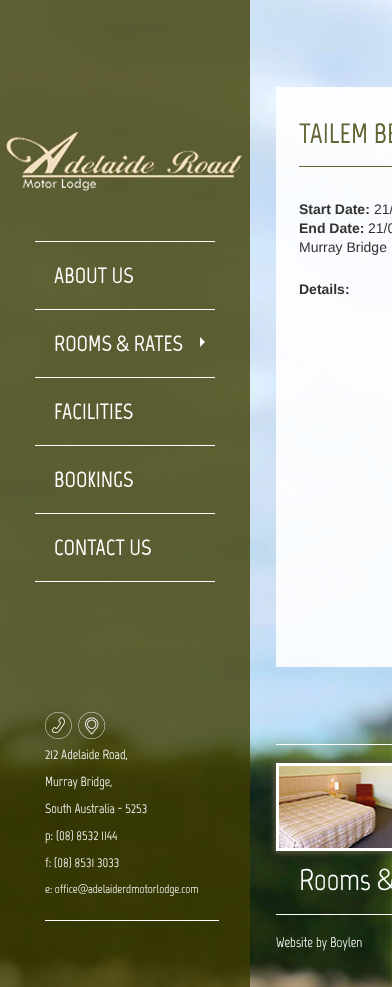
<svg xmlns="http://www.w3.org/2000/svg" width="392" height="987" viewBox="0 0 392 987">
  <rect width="100%" height="100%" fill="rgb(255,255,255)"/>
  <image x="0" y="0" width="392" height="987" href="pic1.png"/>
  <rect x="0" y="0" width="250" height="987" fill="rgba(62,60,0,0.8)"/>
  <image x="6" y="132" width="236" height="59" href="pic2.png"/>
  <rect x="35" y="241" width="180" height="1" fill="rgb(255,255,255)"/>
  <rect x="35" y="309" width="180" height="1" fill="rgb(255,255,255)"/>
  <text x="54" y="283" font-family="Marvel" font-size="22" font-weight="bold" fill="rgb(255,255,255)">ABOUT US</text>
  <rect x="35" y="377" width="180" height="1" fill="rgb(255,255,255)"/>
  <text x="54" y="351" font-family="Marvel" font-size="22" font-weight="bold" fill="rgb(255,255,255)">ROOMS &amp; RATES</text>
  <path d="M200 347V337L205 342Z" fill="rgb(255,255,255)"/>
  <rect x="35" y="445" width="180" height="1" fill="rgb(255,255,255)"/>
  <text x="54" y="419" font-family="Marvel" font-size="22" font-weight="bold" fill="rgb(255,255,255)">FACILITIES</text>
  <rect x="35" y="513" width="180" height="1" fill="rgb(255,255,255)"/>
  <text x="54" y="487" font-family="Marvel" font-size="22" font-weight="bold" fill="rgb(255,255,255)">BOOKINGS</text>
  <rect x="35" y="581" width="180" height="1" fill="rgb(255,255,255)"/>
  <text x="54" y="555" font-family="Marvel" font-size="22" font-weight="bold" fill="rgb(255,255,255)">CONTACT US</text>
  <image x="45" y="712" width="27" height="27" href="pic3.png"/>
  <image x="78" y="712" width="27" height="27" href="pic4.png"/>
  <g font-family="Marvel" font-size="13.25" fill="rgb(255,255,255)">
    <text x="45" y="759">212 Adelaide Road,</text>
    <text x="45" y="786">Murray Bridge,</text>
    <text x="45" y="813">South Australia - 5253</text>
    <text x="45" y="840">p: (08) 8532 1144</text>
    <text x="45" y="867">f: (08) 8531 3033</text>
  </g>
  <text x="45" y="893" font-family="Marvel" font-size="12" fill="rgb(255,255,255)">e: office@adelaiderdmotorlodge.com</text>
  <rect x="45" y="920" width="174" height="1" fill="rgb(255,255,255)"/>
  <rect x="276" y="87" width="116" height="580" fill="rgba(255,255,255,0.9)"/>
  <rect x="299" y="166" width="93" height="1" fill="rgb(101,100,51)"/>
  <text x="299" y="143" font-family="Marvel" font-size="28" font-weight="bold" fill="rgb(101,100,51)">TAILEM BE</text>
  <text x="299" y="214" font-family="Liberation Sans" font-size="14" font-weight="bold" fill="rgb(51,51,51)">Start Date:</text>
  <text x="374" y="214" font-family="Liberation Sans" font-size="14" fill="rgb(51,51,51)">21/</text>
  <text x="299" y="233" font-family="Liberation Sans" font-size="14" font-weight="bold" fill="rgb(51,51,51)">End Date:</text>
  <g font-family="Liberation Sans" font-size="14" fill="rgb(51,51,51)">
    <text x="368" y="233">21/0</text>
    <text x="299" y="252">Murray Bridge</text>
  </g>
  <text x="299" y="294" font-family="Liberation Sans" font-size="14" font-weight="bold" fill="rgb(51,51,51)">Details:</text>
  <rect x="276" y="744" width="116" height="1" fill="rgb(255,255,255)"/>
  <rect x="274" y="761" width="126" height="92" fill="rgb(91,89,66)" filter="blur(2.5px)"/>
  <rect x="277.5" y="764.5" width="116" height="85" fill="none" stroke="rgb(255,255,255)" stroke-width="3"/>
  <image x="279" y="766" width="113" height="82" href="pic5.png"/>
  <text x="299" y="890" font-family="Marvel" font-size="30" fill="rgb(255,255,255)">Rooms &amp;</text>
  <rect x="276" y="914" width="116" height="1" fill="rgb(255,255,255)"/>
  <text x="276" y="947" font-family="Marvel" font-size="14" fill="rgb(255,255,255)">Website by Boylen</text>
</svg>
